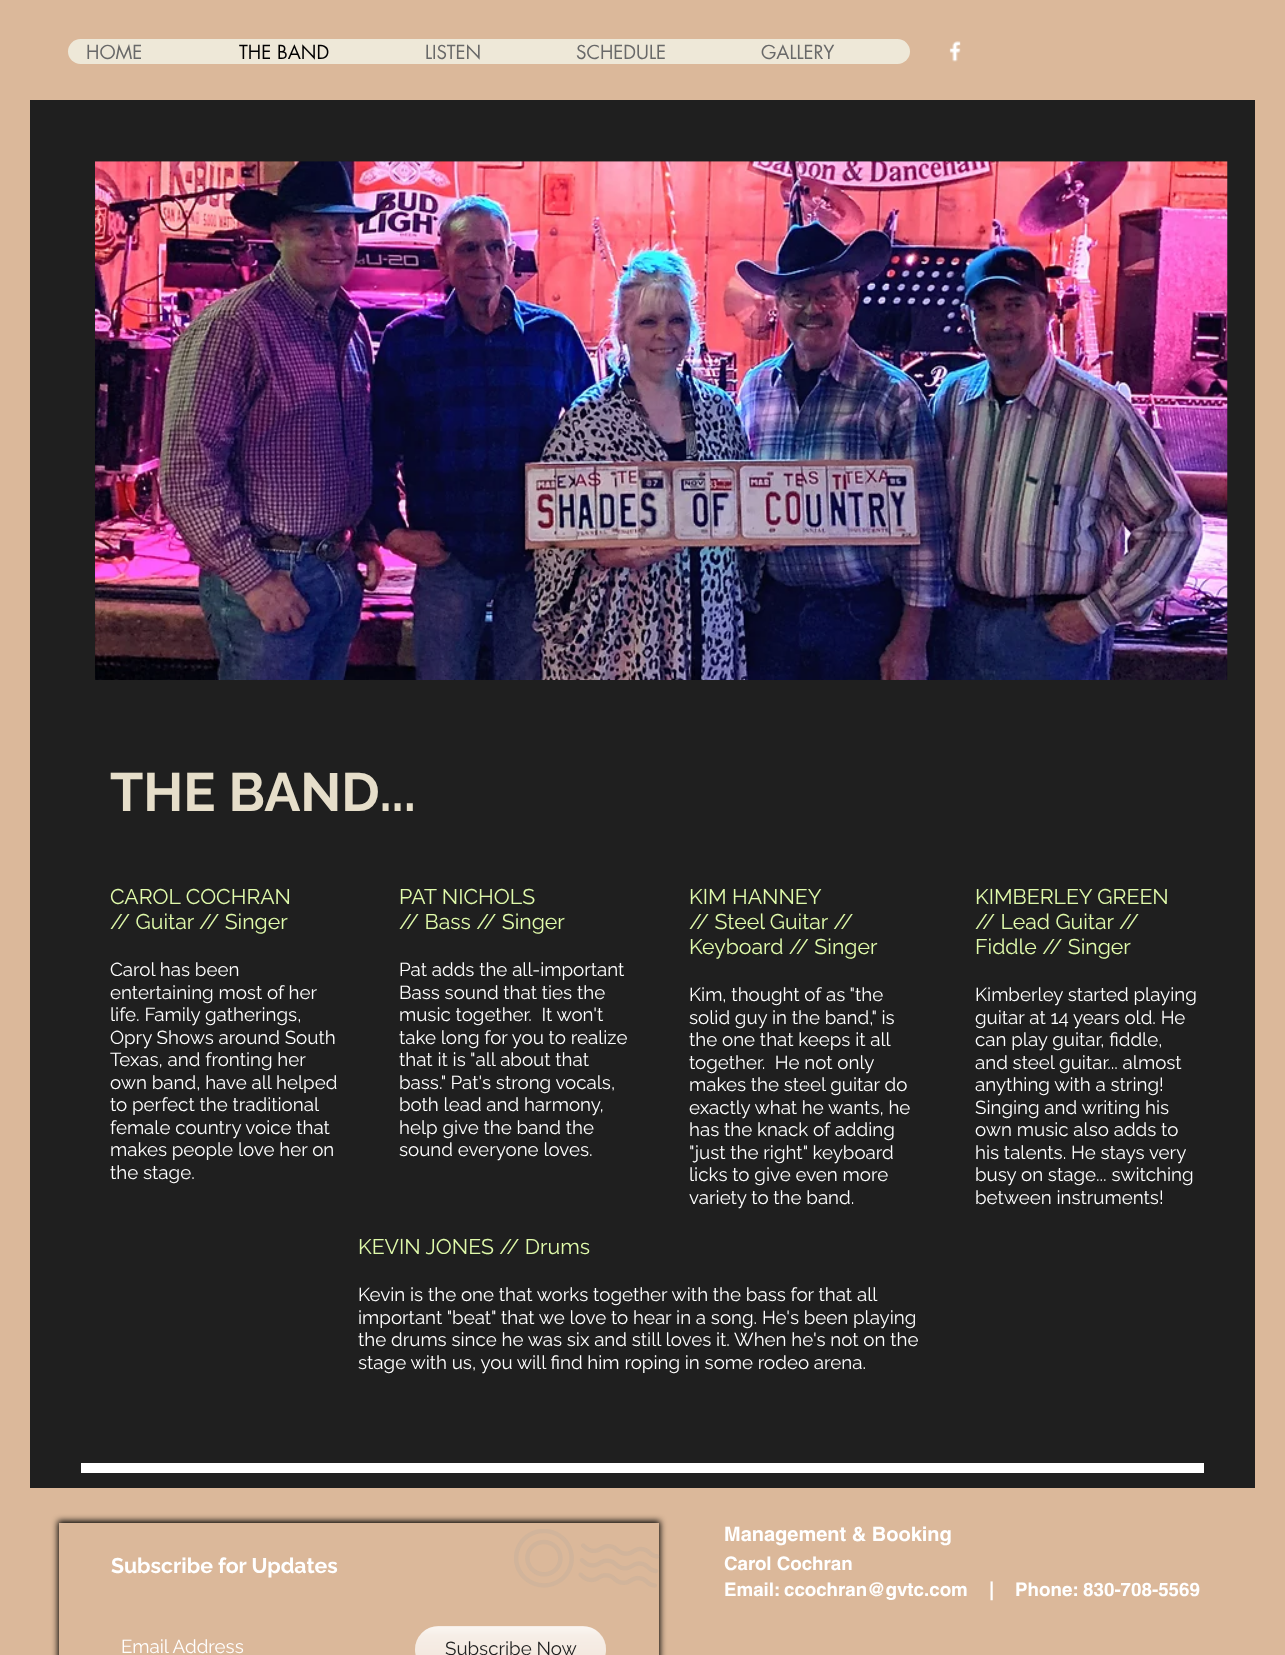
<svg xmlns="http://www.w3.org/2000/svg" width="1285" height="1655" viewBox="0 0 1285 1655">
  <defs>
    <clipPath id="clip1"><path d="M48 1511H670V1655H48ZM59 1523H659V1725H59Z" clip-rule="evenodd"/></clipPath>
  </defs>
  <rect width="100%" height="100%" fill="rgb(219,184,154)"/>
  <rect x="68" y="39" width="842" height="25" rx="12.5" fill="rgb(238,232,216)"/>
  <text x="86" y="59" font-family="futura" font-size="18.75" fill="rgb(105,105,105)">HOME</text>
  <text x="239" y="59" font-family="futura" font-size="18.75" fill="rgb(0,0,0)">THE BAND</text>
  <g font-family="futura" font-size="18.75" fill="rgb(105,105,105)">
    <text x="425" y="59">LISTEN</text>
    <text x="576" y="59">SCHEDULE</text>
    <text x="761" y="59">GALLERY</text>
  </g>
  <image x="949" y="41" width="12" height="21" href="pic1.png"/>
  <rect x="30" y="100" width="1225" height="1388" fill="rgb(31,31,31)"/>
  <image x="95" y="161" width="1133" height="519" href="pic2.png"/>
  <text x="110" y="811" font-family="Raleway" font-size="53.75" font-weight="bold" fill="rgb(230,222,202)">THE BAND...</text>
  <g font-family="Raleway" font-size="21.25" fill="rgb(224,251,171)">
    <text>
      <tspan x="110" y="904">CAROL COCHRAN</tspan>
      <tspan x="110" y="929">// Guitar // Singer</tspan>
    </text>
  </g>
  <g font-family="Raleway" font-size="18.75" fill="rgb(255,255,255)">
    <text>
      <tspan x="110" y="976">Carol has been</tspan>
      <tspan x="110" y="999">entertaining most of her</tspan>
      <tspan x="110" y="1021">life. Family gatherings,</tspan>
      <tspan x="110" y="1044">Opry Shows around South</tspan>
      <tspan x="110" y="1066">Texas, and fronting her</tspan>
      <tspan x="110" y="1089">own band, have all helped</tspan>
      <tspan x="110" y="1111">to perfect the traditional</tspan>
      <tspan x="110" y="1134">female country voice that</tspan>
      <tspan x="110" y="1156">makes people love her on</tspan>
      <tspan x="110" y="1179">the stage.</tspan>
    </text>
  </g>
  <g font-family="Raleway" font-size="21.25" fill="rgb(224,251,171)">
    <text>
      <tspan x="399" y="904">PAT NICHOLS</tspan>
      <tspan x="399" y="929">// Bass // Singer</tspan>
    </text>
  </g>
  <g font-family="Raleway" font-size="18.75" fill="rgb(255,255,255)">
    <text xml:space="preserve"><tspan x="399" y="976">Pat adds the all-important</tspan><tspan x="399" y="999">Bass sound that ties the</tspan><tspan x="399" y="1021">music together.  It won't</tspan><tspan x="399" y="1044">take long for you to realize</tspan><tspan x="399" y="1066">that it is "all about that</tspan><tspan x="399" y="1089">bass." Pat's strong vocals,</tspan><tspan x="399" y="1111">both lead and harmony,</tspan><tspan x="399" y="1134">help give the band the</tspan><tspan x="399" y="1156">sound everyone loves.</tspan></text>
  </g>
  <g font-family="Raleway" font-size="21.25" fill="rgb(224,251,171)">
    <text>
      <tspan x="689" y="904">KIM HANNEY</tspan>
      <tspan x="689" y="929">// Steel Guitar //</tspan>
      <tspan x="689" y="954">Keyboard // Singer</tspan>
    </text>
  </g>
  <g font-family="Raleway" font-size="18.75" fill="rgb(255,255,255)">
    <text xml:space="preserve"><tspan x="689" y="1001">Kim, thought of as "the</tspan><tspan x="689" y="1024">solid guy in the band," is</tspan><tspan x="689" y="1046">the one that keeps it all</tspan><tspan x="689" y="1069">together.  He not only</tspan><tspan x="689" y="1091">makes the steel guitar do</tspan><tspan x="689" y="1114">exactly what he wants, he</tspan><tspan x="689" y="1136">has the knack of adding</tspan><tspan x="689" y="1159">"just the right" keyboard</tspan><tspan x="689" y="1181">licks to give even more</tspan><tspan x="689" y="1204">variety to the band.</tspan></text>
  </g>
  <g font-family="Raleway" font-size="21.25" fill="rgb(224,251,171)">
    <text>
      <tspan x="975" y="904">KIMBERLEY GREEN</tspan>
      <tspan x="975" y="929">// Lead Guitar //</tspan>
      <tspan x="975" y="954">Fiddle // Singer</tspan>
    </text>
  </g>
  <g font-family="Raleway" font-size="18.75" fill="rgb(255,255,255)">
    <text>
      <tspan x="975" y="1001">Kimberley started playing</tspan>
      <tspan x="975" y="1024">guitar at 14 years old. He</tspan>
      <tspan x="975" y="1046">can play guitar, fiddle,</tspan>
      <tspan x="975" y="1069">and steel guitar... almost</tspan>
      <tspan x="975" y="1091">anything with a string!</tspan>
      <tspan x="975" y="1114">Singing and writing his</tspan>
      <tspan x="975" y="1136">own music also adds to</tspan>
      <tspan x="975" y="1159">his talents. He stays very</tspan>
      <tspan x="975" y="1181">busy on stage... switching</tspan>
      <tspan x="975" y="1204">between instruments!</tspan>
    </text>
  </g>
  <text x="358" y="1254" font-family="Raleway" font-size="21.25" fill="rgb(224,251,171)">KEVIN JONES // Drums</text>
  <g font-family="Raleway" font-size="18.75" fill="rgb(255,255,255)">
    <text>
      <tspan x="358" y="1301">Kevin is the one that works together with the bass for that all</tspan>
      <tspan x="358" y="1324">important "beat" that we love to hear in a song. He's been playing</tspan>
      <tspan x="358" y="1346">the drums since he was six and still loves it. When he's not on the</tspan>
      <tspan x="358" y="1369">stage with us, you will find him roping in some rodeo arena.</tspan>
    </text>
  </g>
  <rect x="81" y="1463" width="1123" height="10" fill="rgb(255,255,255)"/>
  <g clip-path="url(#clip1)">
    <rect x="58" y="1521" width="602" height="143" fill="rgb(0,0,0)" filter="blur(3px)"/>
  </g>
  <text x="111" y="1573" font-family="Raleway" font-size="21.25" font-weight="bold" fill="rgb(255,255,255)">Subscribe for Updates</text>
  <image x="514" y="1529" width="146" height="59" href="pic3.png"/>
  <text x="121" y="1653" font-family="Raleway" font-size="18.75" fill="rgb(255,255,255)">Email Address</text>
  <rect x="415" y="1626" width="191" height="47" rx="23.5" fill="rgb(242,229,218)"/>
  <image x="415" y="1626" width="191" height="29" href="pic4.png"/>
  <text x="445" y="1655" font-family="Raleway" font-size="18.75" fill="rgb(31,31,31)">Subscribe Now</text>
  <text x="724" y="1541" font-family="helvetica" font-size="20" font-weight="bold" fill="rgb(255,255,255)">Management &amp; Booking</text>
  <g font-family="helvetica" font-size="18.75" font-weight="bold" fill="rgb(255,255,255)">
    <text>
      <tspan x="724" y="1570">Carol Cochran</tspan>
      <tspan x="724" y="1596">Email:</tspan>
    </text>
    <text x="784" y="1596">ccochran@gvtc.com</text>
    <text x="989" y="1596" xml:space="preserve">|    Phone: 830-708-5569</text>
  </g>
</svg>
